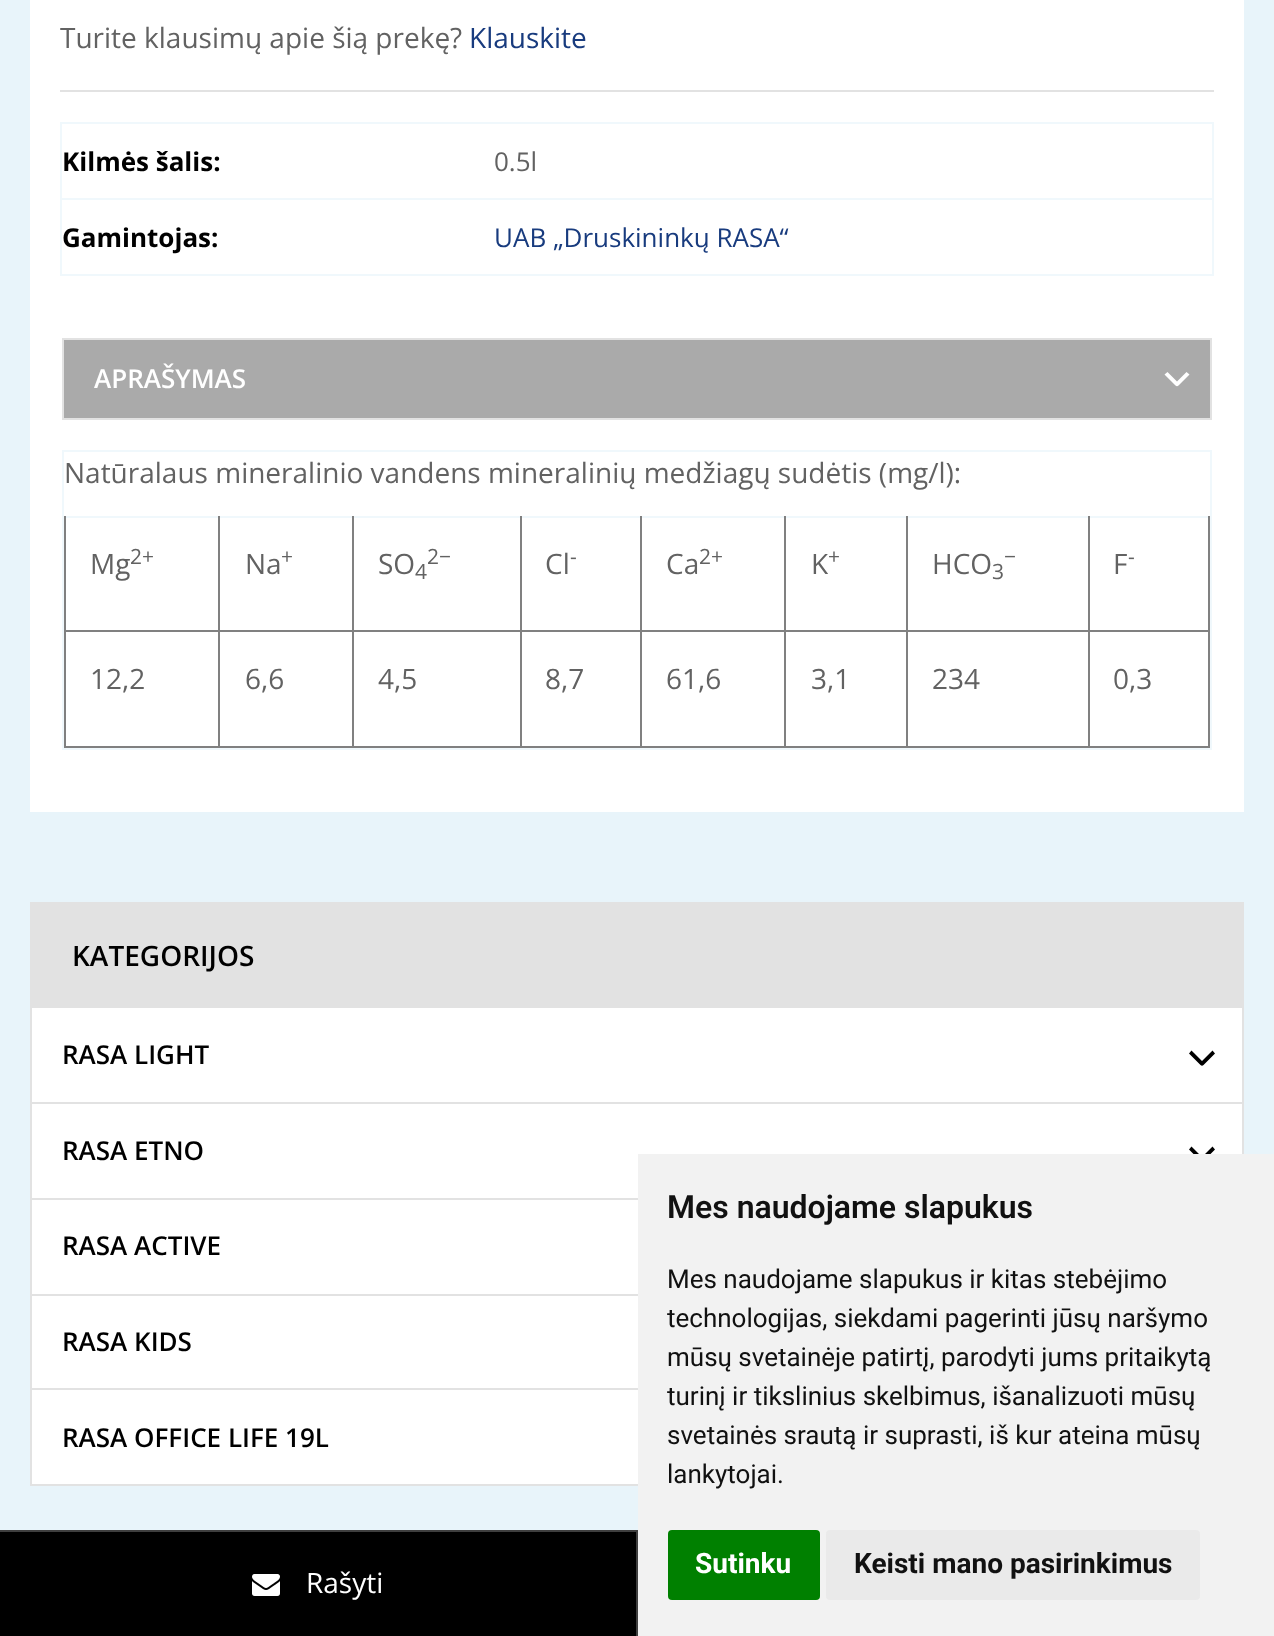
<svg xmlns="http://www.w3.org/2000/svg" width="1274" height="1636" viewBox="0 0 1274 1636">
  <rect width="100%" height="100%" fill="rgb(232,244,250)"/>
  <rect x="30" y="0" width="1214" height="812" fill="rgb(255,255,255)"/>
  <rect x="60" y="90" width="1154" height="2" fill="rgb(226,226,226)"/>
  <text x="60" y="48" font-family="Open Sans" font-size="28" fill="rgb(98,98,98)">Turite klausimų apie šią prekę?</text>
  <text x="469" y="48" font-family="Open Sans" font-size="28" fill="rgb(24,59,126)">Klauskite</text>
  <rect x="61" y="123" width="1152" height="152" fill="none" stroke="rgb(240,248,252)" stroke-width="2"/>
  <text x="62" y="171" font-family="Open Sans" font-size="26" font-weight="bold" fill="rgb(0,0,0)">Kilmės šalis:</text>
  <text x="494" y="171" font-family="Open Sans" font-size="26" fill="rgb(98,98,98)">0.5l</text>
  <text x="62" y="247" font-family="Open Sans" font-size="26" font-weight="bold" fill="rgb(0,0,0)">Gamintojas:</text>
  <rect x="62" y="198" width="1150" height="2" fill="rgb(240,248,252)"/>
  <text x="494" y="247" font-family="Open Sans" font-size="26" fill="rgb(24,59,126)">UAB „Druskininkų RASA“</text>
  <rect x="63" y="339" width="1148" height="80" fill="rgb(170,170,170)" stroke="rgb(226,226,226)" stroke-width="2"/>
  <text x="94" y="388" font-family="Open Sans" font-size="26" font-weight="600" fill="rgb(255,255,255)">APRAŠYMAS</text>
  <path d="M1177 381.5L1167.5 372L1164.5 374.5L1175.5 385.5C1176.5 386.5 1177.5 386.5 1178.5 385.5L1189.5 374.5L1186.5 372Z" fill="rgb(255,255,255)"/>
  <rect x="63" y="451" width="1148" height="298" fill="none" stroke="rgb(240,248,252)" stroke-width="2"/>
  <text x="64" y="483" font-family="Open Sans" font-size="28" fill="rgb(98,98,98)">Natūralaus mineralinio vandens mineralinių medžiagų sudėtis (mg/l):</text>
  <rect x="64" y="746" width="1146" height="2" fill="rgb(128,128,128)"/>
  <rect x="64" y="516" width="1146" height="2" fill="rgb(240,248,252)"/>
  <rect x="1208" y="630" width="2" height="118" fill="rgb(128,128,128)"/>
  <rect x="1208" y="516" width="2" height="116" fill="rgb(128,128,128)"/>
  <rect x="1088" y="630" width="2" height="118" fill="rgb(128,128,128)"/>
  <rect x="1088" y="630" width="122" height="2" fill="rgb(128,128,128)"/>
  <rect x="1088" y="516" width="2" height="116" fill="rgb(128,128,128)"/>
  <rect x="906" y="630" width="2" height="118" fill="rgb(128,128,128)"/>
  <rect x="906" y="630" width="184" height="2" fill="rgb(128,128,128)"/>
  <rect x="906" y="516" width="2" height="116" fill="rgb(128,128,128)"/>
  <rect x="784" y="630" width="2" height="118" fill="rgb(128,128,128)"/>
  <rect x="784" y="630" width="124" height="2" fill="rgb(128,128,128)"/>
  <rect x="784" y="516" width="2" height="116" fill="rgb(128,128,128)"/>
  <rect x="640" y="630" width="2" height="118" fill="rgb(128,128,128)"/>
  <rect x="640" y="630" width="146" height="2" fill="rgb(128,128,128)"/>
  <rect x="640" y="516" width="2" height="116" fill="rgb(128,128,128)"/>
  <rect x="520" y="630" width="2" height="118" fill="rgb(128,128,128)"/>
  <rect x="520" y="630" width="122" height="2" fill="rgb(128,128,128)"/>
  <rect x="520" y="516" width="2" height="116" fill="rgb(128,128,128)"/>
  <rect x="352" y="630" width="2" height="118" fill="rgb(128,128,128)"/>
  <rect x="352" y="630" width="170" height="2" fill="rgb(128,128,128)"/>
  <rect x="352" y="516" width="2" height="116" fill="rgb(128,128,128)"/>
  <rect x="218" y="630" width="2" height="118" fill="rgb(128,128,128)"/>
  <rect x="218" y="630" width="136" height="2" fill="rgb(128,128,128)"/>
  <rect x="218" y="516" width="2" height="116" fill="rgb(128,128,128)"/>
  <rect x="64" y="630" width="2" height="118" fill="rgb(128,128,128)"/>
  <rect x="64" y="630" width="156" height="2" fill="rgb(128,128,128)"/>
  <rect x="64" y="516" width="2" height="116" fill="rgb(128,128,128)"/>
  <text x="90" y="574" font-family="Open Sans" font-size="28" fill="rgb(98,98,98)">Mg</text>
  <text x="130" y="564" font-family="Open Sans" font-size="21" fill="rgb(98,98,98)">2+</text>
  <text x="245" y="574" font-family="Open Sans" font-size="28" fill="rgb(98,98,98)">Na</text>
  <text x="281" y="564" font-family="Open Sans" font-size="21" fill="rgb(98,98,98)">+</text>
  <text x="378" y="574" font-family="Open Sans" font-size="28" fill="rgb(98,98,98)">SO</text>
  <g font-family="Open Sans" font-size="21" fill="rgb(98,98,98)">
    <text x="415" y="579">4</text>
    <text x="427" y="564">2−</text>
  </g>
  <text x="545" y="574" font-family="Open Sans" font-size="28" fill="rgb(98,98,98)">Cl</text>
  <text x="570" y="564" font-family="Open Sans" font-size="21" fill="rgb(98,98,98)">-</text>
  <text x="666" y="574" font-family="Open Sans" font-size="28" fill="rgb(98,98,98)">Ca</text>
  <text x="699" y="564" font-family="Open Sans" font-size="21" fill="rgb(98,98,98)">2+</text>
  <text x="811" y="574" font-family="Open Sans" font-size="28" fill="rgb(98,98,98)">K</text>
  <text x="828" y="564" font-family="Open Sans" font-size="21" fill="rgb(98,98,98)">+</text>
  <text x="932" y="574" font-family="Open Sans" font-size="28" fill="rgb(98,98,98)">HCO</text>
  <g font-family="Open Sans" font-size="21" fill="rgb(98,98,98)">
    <text x="1004" y="564">−</text>
    <text x="992" y="579">3</text>
  </g>
  <text x="1113" y="574" font-family="Open Sans" font-size="28" fill="rgb(98,98,98)">F</text>
  <text x="1128" y="564" font-family="Open Sans" font-size="21" fill="rgb(98,98,98)">-</text>
  <g font-family="Open Sans" font-size="28" fill="rgb(98,98,98)">
    <text x="90" y="689">12,2</text>
    <text x="245" y="689">6,6</text>
    <text x="378" y="689">4,5</text>
    <text x="545" y="689">8,7</text>
    <text x="666" y="689">61,6</text>
    <text x="811" y="689">3,1</text>
    <text x="932" y="689">234</text>
    <text x="1113" y="689">0,3</text>
  </g>
  <rect x="32" y="1008" width="1210" height="476" fill="rgb(255,255,255)"/>
  <rect x="31" y="903" width="1212" height="582" fill="none" stroke="rgb(226,226,226)" stroke-width="2"/>
  <rect x="32" y="904" width="1210" height="104" fill="rgb(226,226,226)"/>
  <text x="72" y="966" font-family="Open Sans" font-size="28" font-weight="600" fill="rgb(0,0,0)">KATEGORIJOS</text>
  <rect x="32" y="1102" width="1210" height="2" fill="rgb(226,226,226)"/>
  <text x="62" y="1064" font-family="Open Sans" font-size="26" font-weight="600" fill="rgb(0,0,0)">RASA LIGHT</text>
  <path d="M1202 1061L1191.5 1050.5L1189 1053.5L1200.5 1065C1201.5 1066 1202.5 1066 1203.5 1065L1215 1053.5L1212.5 1050.5Z" fill="rgb(0,0,0)"/>
  <rect x="32" y="1198" width="606" height="2" fill="rgb(226,226,226)"/>
  <text x="62" y="1160" font-family="Open Sans" font-size="26" font-weight="600" fill="rgb(0,0,0)">RASA ETNO</text>
  <path d="M1202 1157L1191.5 1146.5L1189 1149.5L1200.5 1161C1201.5 1162 1202.5 1162 1203.5 1161L1215 1149.5L1212.5 1146.5Z" fill="rgb(0,0,0)"/>
  <rect x="32" y="1294" width="606" height="2" fill="rgb(226,226,226)"/>
  <text x="62" y="1255" font-family="Open Sans" font-size="26" font-weight="600" fill="rgb(0,0,0)">RASA ACTIVE</text>
  <rect x="32" y="1388" width="606" height="2" fill="rgb(226,226,226)"/>
  <g font-family="Open Sans" font-size="26" font-weight="600" fill="rgb(0,0,0)">
    <text x="62" y="1351">RASA KIDS</text>
    <text x="62" y="1447">RASA OFFICE LIFE 19L</text>
  </g>
  <rect x="638" y="1154" width="636" height="482" fill="rgb(242,242,242)"/>
  <text x="667" y="1218" font-family="Roboto" font-size="32" font-weight="600" fill="rgb(17,17,17)">Mes naudojame slapukus</text>
  <g font-family="Roboto" font-size="26" fill="rgb(17,17,17)">
    <text>
      <tspan x="667" y="1288">Mes naudojame slapukus ir kitas stebėjimo</tspan>
      <tspan x="667" y="1327">technologijas, siekdami pagerinti jūsų naršymo</tspan>
      <tspan x="667" y="1366">mūsų svetainėje patirtį, parodyti jums pritaikytą</tspan>
      <tspan x="667" y="1405">turinį ir tikslinius skelbimus, išanalizuoti mūsų</tspan>
      <tspan x="667" y="1444">svetainės srautą ir suprasti, iš kur ateina mūsų</tspan>
      <tspan x="667" y="1483">lankytojai.</tspan>
    </text>
  </g>
  <rect x="668" y="1530" width="152" height="70" rx="4" fill="rgb(0,128,0)"/>
  <text x="695" y="1573" font-family="Roboto" font-size="28" font-weight="bold" fill="rgb(255,255,255)">Sutinku</text>
  <rect x="826" y="1530" width="374" height="70" rx="4" fill="rgb(234,234,234)"/>
  <text x="854" y="1573" font-family="Roboto" font-size="28" font-weight="bold" fill="rgb(17,17,17)">Keisti mano pasirinkimus</text>
  <rect x="0" y="1532" width="636" height="104" fill="rgb(0,0,0)"/>
  <rect x="0" y="1530" width="638" height="2" fill="rgb(63,63,63)"/>
  <rect x="636" y="1532" width="2" height="104" fill="rgb(63,63,63)"/>
  <image x="252" y="1574" width="28" height="22" href="pic1.png"/>
  <text x="306" y="1593" font-family="Open Sans" font-size="28" fill="rgb(255,255,255)">Rašyti</text>
</svg>
